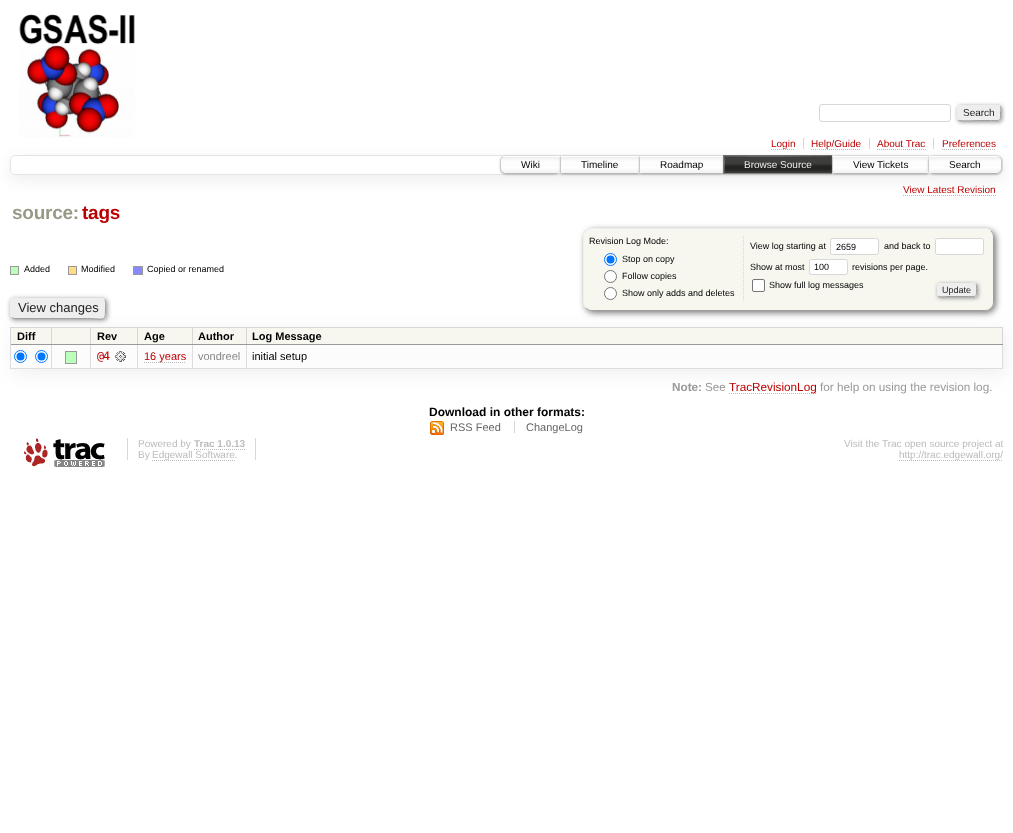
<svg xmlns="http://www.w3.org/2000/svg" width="1013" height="833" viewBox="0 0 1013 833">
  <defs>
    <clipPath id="clip1"><path d="M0 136H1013V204H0ZM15 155H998C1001 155 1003 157 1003 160V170C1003 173 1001 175 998 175H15C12 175 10 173 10 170V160C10 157 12 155 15 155Z" clip-rule="evenodd"/></clipPath>
    <clipPath id="clip2"><path d="M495 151H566V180H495ZM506 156H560V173H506C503 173 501 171 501 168V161C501 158 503 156 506 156Z" clip-rule="evenodd"/></clipPath>
    <clipPath id="clip3"><path d="M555 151H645V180H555ZM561 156H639V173H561Z" clip-rule="evenodd"/></clipPath>
    <clipPath id="clip4"><path d="M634 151H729V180H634ZM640 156H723V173H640Z" clip-rule="evenodd"/></clipPath>
    <clipPath id="clip5"><path d="M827 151H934V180H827ZM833 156H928V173H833Z" clip-rule="evenodd"/></clipPath>
    <clipPath id="clip6"><path d="M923 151H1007V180H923ZM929 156H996C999 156 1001 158 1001 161V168C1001 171 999 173 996 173H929Z" clip-rule="evenodd"/></clipPath>
  </defs>
  <rect width="100%" height="100%" fill="rgb(255,255,255)"/>
  <g clip-path="url(#clip1)">
    <rect x="10" y="160" width="993" height="20" rx="5" fill="rgb(238,238,238)" filter="blur(7.5px)"/>
  </g>
  <image x="19" y="14" width="116" height="124" href="pic1.png"/>
  <rect x="819.5" y="104.5" width="131" height="17" rx="2.5" fill="none" stroke="rgb(215,215,215)"/>
  <rect x="958" y="106" width="44" height="16" rx="3" fill="rgb(136,136,136)" filter="blur(2px)"/>
  <rect x="957" y="105" width="44" height="16" rx="3" fill="rgb(238,238,238)"/>
  <path d="M1000 106C1001.5 108 1000.5 111 1000.5 113C1000.5 121.5 1001 120.5 991.5 120.5H979C976 120.5 960 121.5 958 120" fill="none" stroke="rgb(159,159,159)"/>
  <path d="M958 120C956.5 118 957.5 115 957.5 113C957.5 104.5 957 105.5 966.5 105.5H979C982 105.5 998 104.5 1000 106" fill="none" stroke="rgb(238,238,238)"/>
  <text x="963" y="116" font-family="Liberation Sans" font-size="10" fill="rgb(34,34,34)">Search</text>
  <rect x="803" y="138" width="1" height="11" fill="rgb(215,215,215)"/>
  <path d="M771 149.5H795" fill="none" stroke="rgb(187,187,187)" stroke-dasharray="1 1"/>
  <text x="771" y="147" font-family="Liberation Sans" font-size="10" fill="rgb(187,0,0)">Login</text>
  <rect x="869" y="138" width="1" height="11" fill="rgb(215,215,215)"/>
  <path d="M811 149.5H861" fill="none" stroke="rgb(187,187,187)" stroke-dasharray="1 1"/>
  <text x="811" y="147" font-family="Liberation Sans" font-size="10" fill="rgb(187,0,0)">Help/Guide</text>
  <rect x="933" y="138" width="1" height="11" fill="rgb(215,215,215)"/>
  <text x="877" y="147" font-family="Liberation Sans" font-size="10" fill="rgb(187,0,0)">About Trac</text>
  <path d="M877 149.5H926" fill="none" stroke="rgb(187,187,187)" stroke-dasharray="1 1"/>
  <text x="942" y="147" font-family="Liberation Sans" font-size="10" fill="rgb(187,0,0)">Preferences</text>
  <path d="M942 149.5H996" fill="none" stroke="rgb(187,187,187)" stroke-dasharray="1 1"/>
  <rect x="10.5" y="155.5" width="992" height="19" rx="4.5" fill="none" stroke="rgb(228,228,228)"/>
  <path d="M505 155H561V174H505C502 174 500 172 500 169V160C500 157 502 155 505 155Z" fill="rgb(255,255,255)"/>
  <image x="500" y="157" width="60" height="17" href="pic2.png"/>
  <path d="M505 155.5H560.5V173.5H505C502.5 173.5 500.5 171.5 500.5 169V160C500.5 157.5 502.5 155.5 505 155.5Z" fill="none" stroke="rgb(228,228,228)"/>
  <g clip-path="url(#clip2)">
    <rect x="501" y="157" width="59" height="17" rx="5" fill="rgb(153,153,153)" filter="blur(1.5px)"/>
  </g>
  <text x="521" y="168" font-family="Liberation Sans" font-size="10" fill="rgb(0,0,0)">Wiki</text>
  <rect x="561" y="158" width="2" height="15" fill="rgb(255,255,255)"/>
  <image x="561" y="157" width="78" height="16" href="pic3.png"/>
  <rect x="560.5" y="155.5" width="79" height="18" fill="none" stroke="rgb(228,228,228)"/>
  <g clip-path="url(#clip3)">
    <rect x="561" y="157" width="78" height="17" fill="rgb(153,153,153)" filter="blur(1.5px)"/>
  </g>
  <text x="581" y="168" font-family="Liberation Sans" font-size="10" fill="rgb(0,0,0)">Timeline</text>
  <rect x="640" y="156" width="2" height="17" fill="rgb(255,255,255)"/>
  <image x="640" y="157" width="83" height="16" href="pic4.png"/>
  <rect x="639.5" y="155.5" width="84" height="18" fill="none" stroke="rgb(228,228,228)"/>
  <g clip-path="url(#clip4)">
    <rect x="640" y="157" width="83" height="17" fill="rgb(153,153,153)" filter="blur(1.5px)"/>
  </g>
  <text x="660" y="168" font-family="Liberation Sans" font-size="10" fill="rgb(0,0,0)">Roadmap</text>
  <rect x="723.5" y="155.5" width="109" height="18" fill="none" stroke="rgb(102,102,102)"/>
  <rect x="724" y="157" width="108" height="17" fill="rgb(153,153,153)" filter="blur(1.5px)"/>
  <rect x="724" y="156" width="108" height="17" fill="rgb(0,0,0)"/>
  <image x="724" y="156" width="108" height="17" href="pic5.png"/>
  <text x="744" y="168" font-family="Liberation Sans" font-size="10" fill="rgb(238,238,238)">Browse Source</text>
  <rect x="833" y="156" width="2" height="17" fill="rgb(255,255,255)"/>
  <image x="833" y="157" width="95" height="16" href="pic6.png"/>
  <rect x="832.5" y="155.5" width="96" height="18" fill="none" stroke="rgb(228,228,228)"/>
  <g clip-path="url(#clip5)">
    <rect x="833" y="157" width="95" height="17" fill="rgb(153,153,153)" filter="blur(1.5px)"/>
  </g>
  <text x="853" y="168" font-family="Liberation Sans" font-size="10" fill="rgb(0,0,0)">View Tickets</text>
  <path d="M928 155H997C1000 155 1002 157 1002 160V169C1002 172 1000 174 997 174H928Z" fill="rgb(255,255,255)"/>
  <image x="929" y="157" width="73" height="17" href="pic7.png"/>
  <path d="M928.5 155.5H997C999.5 155.5 1001.5 157.5 1001.5 160V169C1001.5 171.5 999.5 173.5 997 173.5H928.5Z" fill="none" stroke="rgb(228,228,228)"/>
  <g clip-path="url(#clip6)">
    <rect x="929" y="157" width="72" height="17" rx="5" fill="rgb(153,153,153)" filter="blur(1.5px)"/>
  </g>
  <text x="949" y="168" font-family="Liberation Sans" font-size="10" fill="rgb(0,0,0)">Search</text>
  <text x="903" y="193" font-family="Liberation Sans" font-size="10" fill="rgb(187,0,0)">View Latest Revision</text>
  <path d="M903 195.5H996" fill="none" stroke="rgb(187,187,187)" stroke-dasharray="1 1"/>
  <text x="12" y="219" font-family="Liberation Sans" font-size="19" font-weight="bold" letter-spacing="-0.25" fill="rgb(153,153,136)">source:</text>
  <text x="82" y="219" font-family="Liberation Sans" font-size="19" font-weight="bold" letter-spacing="-0.25" fill="rgb(187,0,0)">tags</text>
  <rect x="10.5" y="266.5" width="8" height="8" fill="rgb(187,255,187)" stroke="rgb(153,153,153)"/>
  <text x="24" y="272" font-family="Liberation Sans" font-size="9" fill="rgb(0,0,0)">Added</text>
  <rect x="68.5" y="266.5" width="8" height="8" fill="rgb(255,221,136)" stroke="rgb(153,153,153)"/>
  <text x="81" y="272" font-family="Liberation Sans" font-size="9" fill="rgb(0,0,0)">Modified</text>
  <rect x="133.5" y="266.5" width="9" height="8" fill="rgb(136,136,255)" stroke="rgb(153,153,153)"/>
  <text x="147" y="272" font-family="Liberation Sans" font-size="9" fill="rgb(0,0,0)">Copied or renamed</text>
  <rect x="585" y="230" width="411" height="83" rx="9" fill="rgb(119,119,119)" filter="blur(3px)"/>
  <rect x="13" y="331" width="993" height="42" fill="rgb(238,238,238)" filter="blur(10px)"/>
  <rect x="583" y="228" width="411" height="83" rx="9" fill="rgb(247,247,240)"/>
  <path d="M991 231C992.5 232.5 993.5 234.5 993.5 237V302C993.5 304.5 992.5 306.5 991 308C989.5 309.5 987.5 310.5 985 310.5H592C589.5 310.5 587.5 309.5 586 308" fill="none" stroke="rgb(159,159,159)"/>
  <path d="M586 308C584.5 306.5 583.5 304.5 583.5 302V237C583.5 234.5 584.5 232.5 586 231C587.5 229.5 589.5 228.5 592 228.5H985C987.5 228.5 989.5 229.5 991 231" fill="none" stroke="rgb(238,238,238)"/>
  <path d="M743.5 236V302" fill="none" stroke="rgb(215,215,215)" stroke-dasharray="1 1"/>
  <text x="589" y="244" font-family="Liberation Sans" font-size="9" fill="rgb(0,0,0)">Revision Log Mode:</text>
  <circle cx="610.5" cy="259.5" r="6" fill="rgb(255,255,255)" stroke="rgb(0,117,255)"/>
  <circle cx="610.5" cy="259.5" r="4" fill="rgb(0,117,255)"/>
  <text x="622" y="262" font-family="Liberation Sans" font-size="9" fill="rgb(0,0,0)">Stop on copy</text>
  <circle cx="610.5" cy="276.5" r="6" fill="rgb(255,255,255)" stroke="rgb(118,118,118)"/>
  <text x="622" y="279" font-family="Liberation Sans" font-size="9" fill="rgb(0,0,0)">Follow copies</text>
  <circle cx="610.5" cy="293.5" r="6" fill="rgb(255,255,255)" stroke="rgb(118,118,118)"/>
  <g font-family="Liberation Sans" font-size="9" fill="rgb(0,0,0)">
    <text x="622" y="296">Show only adds and deletes</text>
    <text x="750" y="249">View log starting at</text>
  </g>
  <rect x="830.5" y="238.5" width="48" height="16" rx="2" fill="rgb(255,255,255)" stroke="rgb(215,215,215)"/>
  <g font-family="Liberation Sans" font-size="9" fill="rgb(0,0,0)">
    <text x="836" y="250">2659</text>
    <text x="884" y="249">and back to</text>
  </g>
  <rect x="935.5" y="238.5" width="48" height="16" rx="2" fill="rgb(255,255,255)" stroke="rgb(215,215,215)"/>
  <text x="750" y="270" font-family="Liberation Sans" font-size="9" fill="rgb(0,0,0)">Show at most</text>
  <rect x="809.5" y="259.5" width="38" height="15" rx="2" fill="rgb(255,255,255)" stroke="rgb(215,215,215)"/>
  <g font-family="Liberation Sans" font-size="9" fill="rgb(0,0,0)">
    <text x="814" y="270">100</text>
    <text x="852" y="270">revisions per page.</text>
  </g>
  <rect x="752.5" y="279.5" width="12" height="12" rx="1.5" fill="rgb(255,255,255)" stroke="rgb(118,118,118)"/>
  <text x="769" y="288" font-family="Liberation Sans" font-size="9" fill="rgb(0,0,0)">Show full log messages</text>
  <rect x="938" y="284" width="40" height="14" rx="2.5" fill="rgb(136,136,136)" filter="blur(2px)"/>
  <rect x="937" y="283" width="40" height="14" rx="2.5" fill="rgb(238,238,238)"/>
  <path d="M976 284C977 285.5 976.5 288.5 976.5 290C976.5 297.5 976.5 296.5 968.5 296.5H945.5C945 296.5 939.5 297.5 938 296" fill="none" stroke="rgb(159,159,159)"/>
  <path d="M938 296C937 294.5 937.5 291.5 937.5 290C937.5 282.5 937.5 283.5 945.5 283.5H968.5C969 283.5 974.5 282.5 976 284" fill="none" stroke="rgb(238,238,238)"/>
  <text x="942" y="293" font-family="Liberation Sans" font-size="9" fill="rgb(34,34,34)">Update</text>
  <rect x="11" y="328" width="991" height="16" fill="rgb(247,247,240)"/>
  <rect x="246" y="327" width="757" height="1" fill="rgb(215,215,215)"/>
  <rect x="1002" y="344" width="1" height="25" fill="rgb(221,221,221)"/>
  <rect x="1002" y="327" width="1" height="18" fill="rgb(215,215,215)"/>
  <rect x="11" y="345" width="991" height="23" fill="rgb(252,252,252)"/>
  <rect x="246" y="368" width="757" height="1" fill="rgb(221,221,221)"/>
  <rect x="246" y="344" width="1" height="25" fill="rgb(221,221,221)"/>
  <rect x="246" y="344" width="757" height="1" fill="rgb(153,153,153)"/>
  <rect x="246" y="327" width="1" height="18" fill="rgb(215,215,215)"/>
  <rect x="192" y="327" width="55" height="1" fill="rgb(215,215,215)"/>
  <rect x="192" y="368" width="55" height="1" fill="rgb(221,221,221)"/>
  <rect x="192" y="344" width="1" height="25" fill="rgb(221,221,221)"/>
  <rect x="192" y="344" width="55" height="1" fill="rgb(153,153,153)"/>
  <rect x="192" y="327" width="1" height="18" fill="rgb(215,215,215)"/>
  <rect x="137" y="327" width="56" height="1" fill="rgb(215,215,215)"/>
  <rect x="137" y="368" width="56" height="1" fill="rgb(221,221,221)"/>
  <rect x="137" y="344" width="1" height="25" fill="rgb(221,221,221)"/>
  <rect x="137" y="344" width="56" height="1" fill="rgb(153,153,153)"/>
  <rect x="137" y="327" width="1" height="18" fill="rgb(215,215,215)"/>
  <rect x="90" y="327" width="48" height="1" fill="rgb(215,215,215)"/>
  <rect x="90" y="368" width="48" height="1" fill="rgb(221,221,221)"/>
  <rect x="90" y="344" width="1" height="25" fill="rgb(221,221,221)"/>
  <rect x="90" y="344" width="48" height="1" fill="rgb(153,153,153)"/>
  <rect x="90" y="327" width="1" height="18" fill="rgb(215,215,215)"/>
  <rect x="51" y="327" width="40" height="1" fill="rgb(215,215,215)"/>
  <rect x="51" y="368" width="40" height="1" fill="rgb(221,221,221)"/>
  <rect x="51" y="344" width="1" height="25" fill="rgb(221,221,221)"/>
  <rect x="51" y="344" width="40" height="1" fill="rgb(153,153,153)"/>
  <rect x="51" y="327" width="1" height="18" fill="rgb(215,215,215)"/>
  <rect x="10" y="327" width="42" height="1" fill="rgb(215,215,215)"/>
  <rect x="10" y="368" width="42" height="1" fill="rgb(221,221,221)"/>
  <rect x="10" y="344" width="1" height="25" fill="rgb(221,221,221)"/>
  <rect x="10" y="344" width="42" height="1" fill="rgb(153,153,153)"/>
  <rect x="10" y="327" width="1" height="18" fill="rgb(215,215,215)"/>
  <rect x="11" y="299" width="96" height="21" rx="4" fill="rgb(136,136,136)" filter="blur(2.5px)"/>
  <rect x="10" y="298" width="96" height="21" rx="4" fill="rgb(238,238,238)"/>
  <path d="M104.5 299.5C106.5 301.5 105.5 306 105.5 308.5C105.5 322.5 104.5 318.5 87.5 318.5H14L11.5 317.5" fill="none" stroke="rgb(159,159,159)"/>
  <path d="M11.5 317.5C9.5 315.5 10.5 311 10.5 308.5C10.5 294.5 11.5 298.5 28.5 298.5H102L104.5 299.5" fill="none" stroke="rgb(238,238,238)"/>
  <text x="18" y="312" font-family="Liberation Sans" font-size="13" fill="rgb(34,34,34)">View changes</text>
  <g font-family="Liberation Sans" font-size="11" font-weight="bold" fill="rgb(0,0,0)">
    <text x="17" y="340">Diff</text>
    <text x="97" y="340">Rev</text>
    <text x="144" y="340">Age</text>
    <text x="198" y="340">Author</text>
    <text x="252" y="340">Log Message</text>
  </g>
  <circle cx="20.5" cy="356.5" r="6" fill="rgb(255,255,255)" stroke="rgb(0,117,255)"/>
  <circle cx="20.5" cy="356.5" r="4" fill="rgb(0,117,255)"/>
  <circle cx="41.5" cy="356.5" r="6" fill="rgb(255,255,255)" stroke="rgb(0,117,255)"/>
  <circle cx="41.5" cy="356.5" r="4" fill="rgb(0,117,255)"/>
  <rect x="65.5" y="351.5" width="11" height="12" fill="rgb(187,255,187)" stroke="rgb(153,153,153)"/>
  <text x="97" y="360" font-family="DejaVu Sans Mono" font-size="11.75" letter-spacing="-1" fill="rgb(187,0,0)">@4</text>
  <image x="115" y="351" width="11" height="11" href="pic8.png"/>
  <path d="M144 362.5H186" fill="none" stroke="rgb(187,187,187)" stroke-dasharray="1 1"/>
  <text x="144" y="360" font-family="Liberation Sans" font-size="11" fill="rgb(187,0,0)">16 years</text>
  <text x="198" y="360" font-family="Liberation Sans" font-size="11" fill="rgb(136,136,136)">vondreel</text>
  <text x="252" y="360" font-family="Liberation Sans" font-size="11" fill="rgb(0,0,0)">initial setup</text>
  <text x="672" y="391" font-family="Liberation Sans" font-size="11.75" font-weight="bold" fill="rgb(153,153,153)">Note:</text>
  <text x="705" y="391" font-family="Liberation Sans" font-size="11.75" fill="rgb(153,153,153)">See</text>
  <path d="M729 393.5H817" fill="none" stroke="rgb(187,187,187)" stroke-dasharray="1 1"/>
  <text x="729" y="391" font-family="Liberation Sans" font-size="11.75" fill="rgb(187,0,0)">TracRevisionLog</text>
  <text x="820" y="391" font-family="Liberation Sans" font-size="11.75" fill="rgb(153,153,153)">for help on using the revision log.</text>
  <text x="429" y="416" font-family="Liberation Sans" font-size="12" font-weight="bold" fill="rgb(0,0,0)">Download in other formats:</text>
  <image x="430" y="421" width="14" height="14" href="pic9.png"/>
  <text x="450" y="431" font-family="Liberation Sans" font-size="11" fill="rgb(102,102,102)">RSS Feed</text>
  <rect x="514" y="421" width="1" height="12" fill="rgb(215,215,215)"/>
  <text x="526" y="431" font-family="Liberation Sans" font-size="11" fill="rgb(102,102,102)">ChangeLog</text>
  <image x="24" y="438" width="81" height="29" href="pic10.png"/>
  <rect x="255" y="438" width="1" height="22" fill="rgb(215,215,215)"/>
  <rect x="127" y="438" width="1" height="22" fill="rgb(215,215,215)"/>
  <text x="138" y="447" font-family="Liberation Sans" font-size="10" fill="rgb(187,187,187)">Powered by</text>
  <text x="194" y="447" font-family="Liberation Sans" font-size="10" font-weight="bold" fill="rgb(187,187,187)">Trac 1.0.13</text>
  <path d="M194 449.5H245" fill="none" stroke="rgb(187,187,187)" stroke-dasharray="1 1"/>
  <text x="138" y="458" font-family="Liberation Sans" font-size="10" fill="rgb(187,187,187)">By</text>
  <path d="M152 460.5H235" fill="none" stroke="rgb(187,187,187)" stroke-dasharray="1 1"/>
  <g font-family="Liberation Sans" font-size="10" fill="rgb(187,187,187)">
    <text x="152" y="458">Edgewall Software.</text>
    <text x="844" y="447">Visit the Trac open source project at</text>
  </g>
  <path d="M899 460.5H1003" fill="none" stroke="rgb(187,187,187)" stroke-dasharray="1 1"/>
  <text x="899" y="458" font-family="Liberation Sans" font-size="10" fill="rgb(187,187,187)">http://trac.edgewall.org/</text>
</svg>
